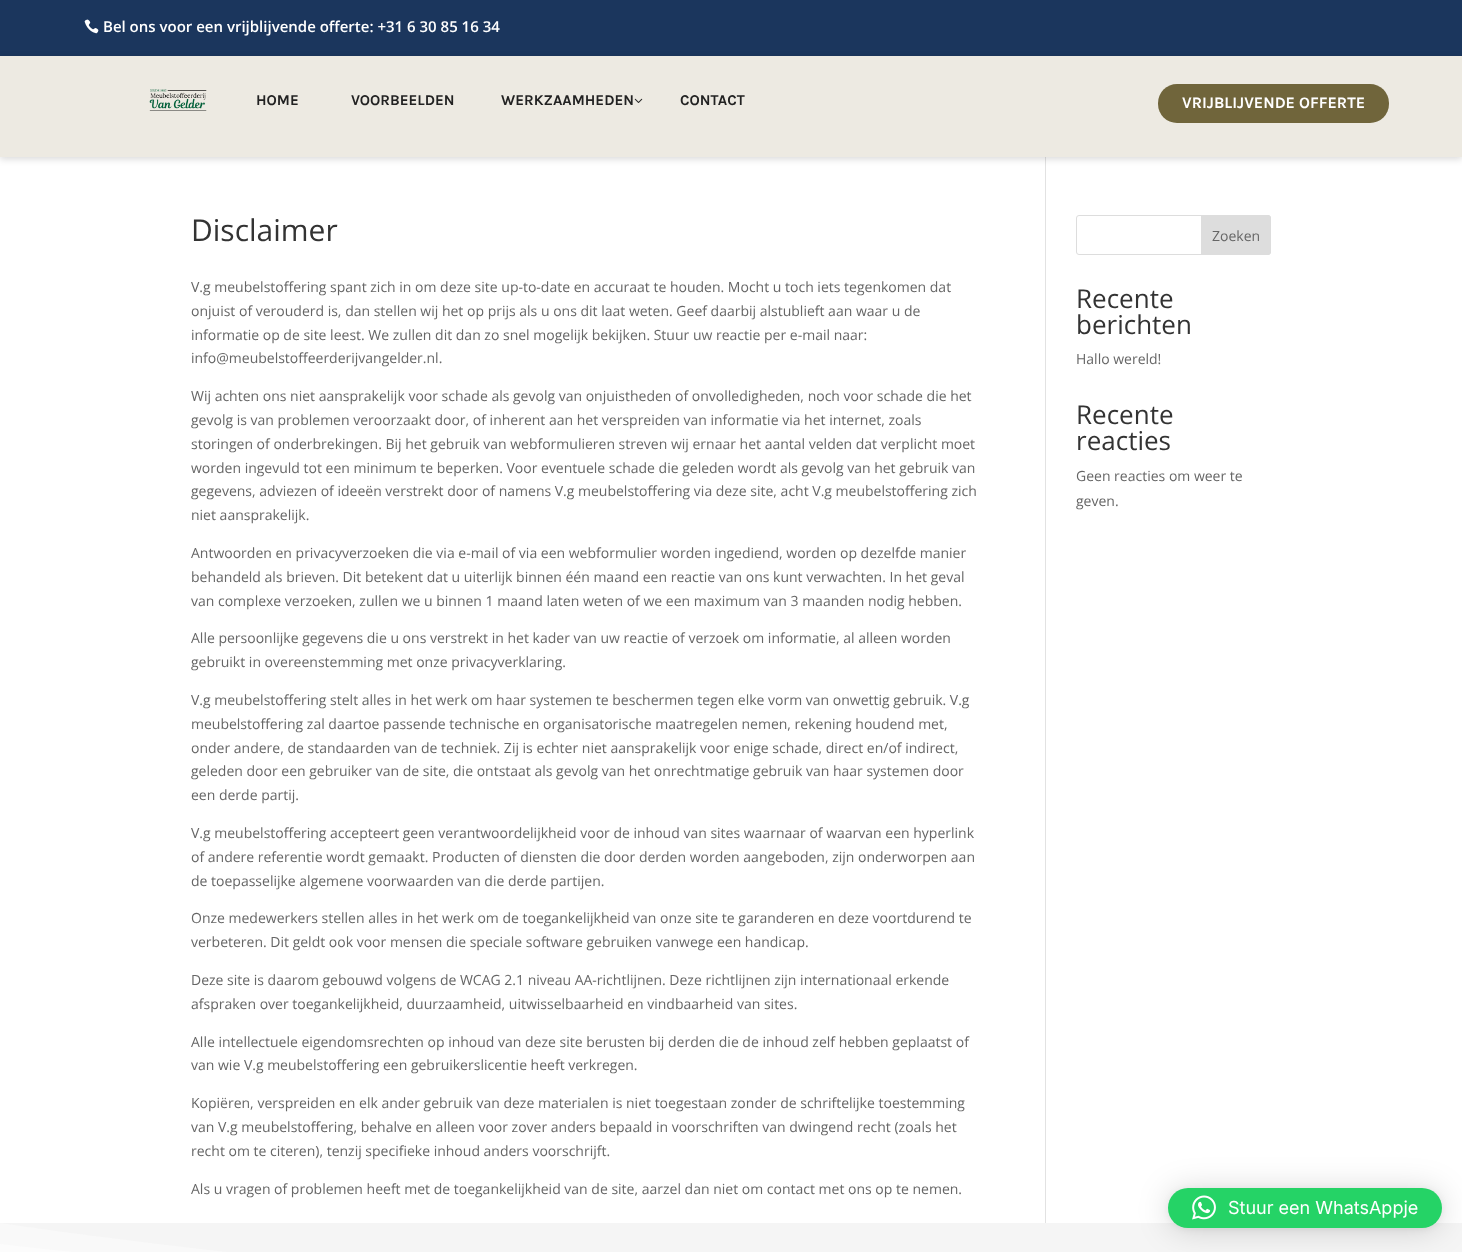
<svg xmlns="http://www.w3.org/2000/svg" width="1462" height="1252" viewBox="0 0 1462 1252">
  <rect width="100%" height="100%" fill="rgb(255,255,255)"/>
  <rect x="0" y="0" width="1462" height="56" fill="rgb(27,54,93)"/>
  <image x="84" y="19" width="15" height="15" href="pic1.png"/>
  <text x="103" y="32" font-family="Open Sans" font-size="15" font-weight="600" fill="rgb(255,255,255)">Bel ons voor een vrijblijvende offerte: +31 6 30 85 16 34</text>
  <rect x="1045" y="157" width="1" height="1066" fill="rgb(226,226,226)"/>
  <rect x="0" y="58" width="1462" height="101" fill="rgba(0,0,0,0.15)" filter="blur(3.5px)"/>
  <rect x="0" y="56" width="1462" height="101" fill="rgb(237,234,226)"/>
  <image x="149" y="89" width="58" height="22" href="pic2.png"/>
  <g font-family="Karla" font-size="15" font-weight="bold" fill="rgb(34,34,34)">
    <text x="256" y="105">HOME</text>
    <text x="351" y="105">VOORBEELDEN</text>
    <text x="501" y="105">WERKZAAMHEDEN</text>
  </g>
  <image x="634" y="98" width="9" height="5" href="pic3.png"/>
  <text x="680" y="105" font-family="Karla" font-size="15" font-weight="bold" fill="rgb(34,34,34)">CONTACT</text>
  <rect x="1158" y="84" width="231" height="39" rx="19" fill="rgb(112,101,59)"/>
  <text x="1182" y="108" font-family="Karla" font-size="16" font-weight="bold" fill="rgb(255,255,255)">VRIJBLIJVENDE OFFERTE</text>
  <text x="191" y="241" font-family="Open Sans" font-size="30" fill="rgb(51,51,51)">Disclaimer</text>
  <g font-family="Open Sans" font-size="14" fill="rgb(102,102,102)">
    <text>
      <tspan x="191" y="292">V.g meubelstoffering spant zich in om deze site up-to-date en accuraat te houden. Mocht u toch iets tegenkomen dat</tspan>
      <tspan x="191" y="316">onjuist of verouderd is, dan stellen wij het op prijs als u ons dit laat weten. Geef daarbij alstublieft aan waar u de</tspan>
      <tspan x="191" y="340">informatie op de site leest. We zullen dit dan zo snel mogelijk bekijken. Stuur uw reactie per e-mail naar:</tspan>
      <tspan x="191" y="363">info@meubelstoffeerderijvangelder.nl.</tspan>
    </text>
    <text>
      <tspan x="191" y="401">Wij achten ons niet aansprakelijk voor schade als gevolg van onjuistheden of onvolledigheden, noch voor schade die het</tspan>
      <tspan x="191" y="425">gevolg is van problemen veroorzaakt door, of inherent aan het verspreiden van informatie via het internet, zoals</tspan>
      <tspan x="191" y="449">storingen of onderbrekingen. Bij het gebruik van webformulieren streven wij ernaar het aantal velden dat verplicht moet</tspan>
      <tspan x="191" y="473">worden ingevuld tot een minimum te beperken. Voor eventuele schade die geleden wordt als gevolg van het gebruik van</tspan>
      <tspan x="191" y="496">gegevens, adviezen of ideeën verstrekt door of namens V.g meubelstoffering via deze site, acht V.g meubelstoffering zich</tspan>
      <tspan x="191" y="520">niet aansprakelijk.</tspan>
    </text>
    <text>
      <tspan x="191" y="558">Antwoorden en privacyverzoeken die via e-mail of via een webformulier worden ingediend, worden op dezelfde manier</tspan>
      <tspan x="191" y="582">behandeld als brieven. Dit betekent dat u uiterlijk binnen één maand een reactie van ons kunt verwachten. In het geval</tspan>
      <tspan x="191" y="606">van complexe verzoeken, zullen we u binnen 1 maand laten weten of we een maximum van 3 maanden nodig hebben.</tspan>
    </text>
    <text>
      <tspan x="191" y="643">Alle persoonlijke gegevens die u ons verstrekt in het kader van uw reactie of verzoek om informatie, al alleen worden</tspan>
      <tspan x="191" y="667">gebruikt in overeenstemming met onze privacyverklaring.</tspan>
    </text>
    <text>
      <tspan x="191" y="705">V.g meubelstoffering stelt alles in het werk om haar systemen te beschermen tegen elke vorm van onwettig gebruik. V.g</tspan>
      <tspan x="191" y="729">meubelstoffering zal daartoe passende technische en organisatorische maatregelen nemen, rekening houdend met,</tspan>
      <tspan x="191" y="753">onder andere, de standaarden van de techniek. Zij is echter niet aansprakelijk voor enige schade, direct en/of indirect,</tspan>
      <tspan x="191" y="776">geleden door een gebruiker van de site, die ontstaat als gevolg van het onrechtmatige gebruik van haar systemen door</tspan>
      <tspan x="191" y="800">een derde partij.</tspan>
    </text>
    <text>
      <tspan x="191" y="838">V.g meubelstoffering accepteert geen verantwoordelijkheid voor de inhoud van sites waarnaar of waarvan een hyperlink</tspan>
      <tspan x="191" y="862">of andere referentie wordt gemaakt. Producten of diensten die door derden worden aangeboden, zijn onderworpen aan</tspan>
      <tspan x="191" y="886">de toepasselijke algemene voorwaarden van die derde partijen.</tspan>
    </text>
    <text>
      <tspan x="191" y="923">Onze medewerkers stellen alles in het werk om de toegankelijkheid van onze site te garanderen en deze voortdurend te</tspan>
      <tspan x="191" y="947">verbeteren. Dit geldt ook voor mensen die speciale software gebruiken vanwege een handicap.</tspan>
    </text>
    <text>
      <tspan x="191" y="985">Deze site is daarom gebouwd volgens de WCAG 2.1 niveau AA-richtlijnen. Deze richtlijnen zijn internationaal erkende</tspan>
      <tspan x="191" y="1009">afspraken over toegankelijkheid, duurzaamheid, uitwisselbaarheid en vindbaarheid van sites.</tspan>
    </text>
    <text>
      <tspan x="191" y="1047">Alle intellectuele eigendomsrechten op inhoud van deze site berusten bij derden die de inhoud zelf hebben geplaatst of</tspan>
      <tspan x="191" y="1070">van wie V.g meubelstoffering een gebruikerslicentie heeft verkregen.</tspan>
    </text>
    <text>
      <tspan x="191" y="1108">Kopiëren, verspreiden en elk ander gebruik van deze materialen is niet toegestaan zonder de schriftelijke toestemming</tspan>
      <tspan x="191" y="1132">van V.g meubelstoffering, behalve en alleen voor zover anders bepaald in voorschriften van dwingend recht (zoals het</tspan>
      <tspan x="191" y="1156">recht om te citeren), tenzij specifieke inhoud anders voorschrijft.</tspan>
    </text>
    <text x="191" y="1194">Als u vragen of problemen heeft met de toegankelijkheid van de site, aarzel dan niet om contact met ons op te nemen.</text>
  </g>
  <rect x="1076.5" y="215.5" width="194" height="39" rx="2.5" fill="none" stroke="rgb(221,221,221)"/>
  <path d="M1201.5 215.5H1268C1269.5 215.5 1270.5 216.5 1270.5 218V252C1270.5 253.5 1269.5 254.5 1268 254.5H1201.5Z" fill="rgb(221,221,221)" stroke="rgb(221,221,221)"/>
  <text x="1212" y="241" font-family="Open Sans" font-size="14" fill="rgb(102,102,102)">Zoeken</text>
  <g font-family="Open Sans" font-size="26" fill="rgb(51,51,51)">
    <text>
      <tspan x="1076" y="308">Recente</tspan>
      <tspan x="1076" y="334">berichten</tspan>
    </text>
  </g>
  <text x="1076" y="364" font-family="Open Sans" font-size="14" fill="rgb(102,102,102)">Hallo wereld!</text>
  <g font-family="Open Sans" font-size="26" fill="rgb(51,51,51)">
    <text>
      <tspan x="1076" y="424">Recente</tspan>
      <tspan x="1076" y="450">reacties</tspan>
    </text>
  </g>
  <g font-family="Open Sans" font-size="14" fill="rgb(102,102,102)">
    <text>
      <tspan x="1076" y="481">Geen reacties om weer te</tspan>
      <tspan x="1076" y="506">geven.</tspan>
    </text>
  </g>
  <path d="M0 1223V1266C0 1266 655 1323 1462 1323V1223Z" fill="rgb(252,252,252)"/>
  <path d="M0 1223V1244C0 1244 655 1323 1462 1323V1223Z" fill="rgb(249,249,249)"/>
  <path d="M0 1223C0 1223 655 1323 1462 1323V1223Z" fill="rgb(245,245,245)"/>
  <rect x="1168" y="1190" width="274" height="40" rx="20" fill="rgba(0,0,0,0.16)" filter="blur(16px)"/>
  <rect x="1168" y="1189" width="274" height="40" rx="20" fill="rgba(0,0,0,0.06)" filter="blur(3px)"/>
  <rect x="1168" y="1188" width="274" height="40" rx="20" fill="rgb(37,211,102)"/>
  <image x="1192" y="1195" width="24" height="25" href="pic4.png"/>
  <text x="1228" y="1214" font-family="Inter" font-size="18" fill="rgb(255,255,255)">Stuur een WhatsAppje</text>
</svg>
